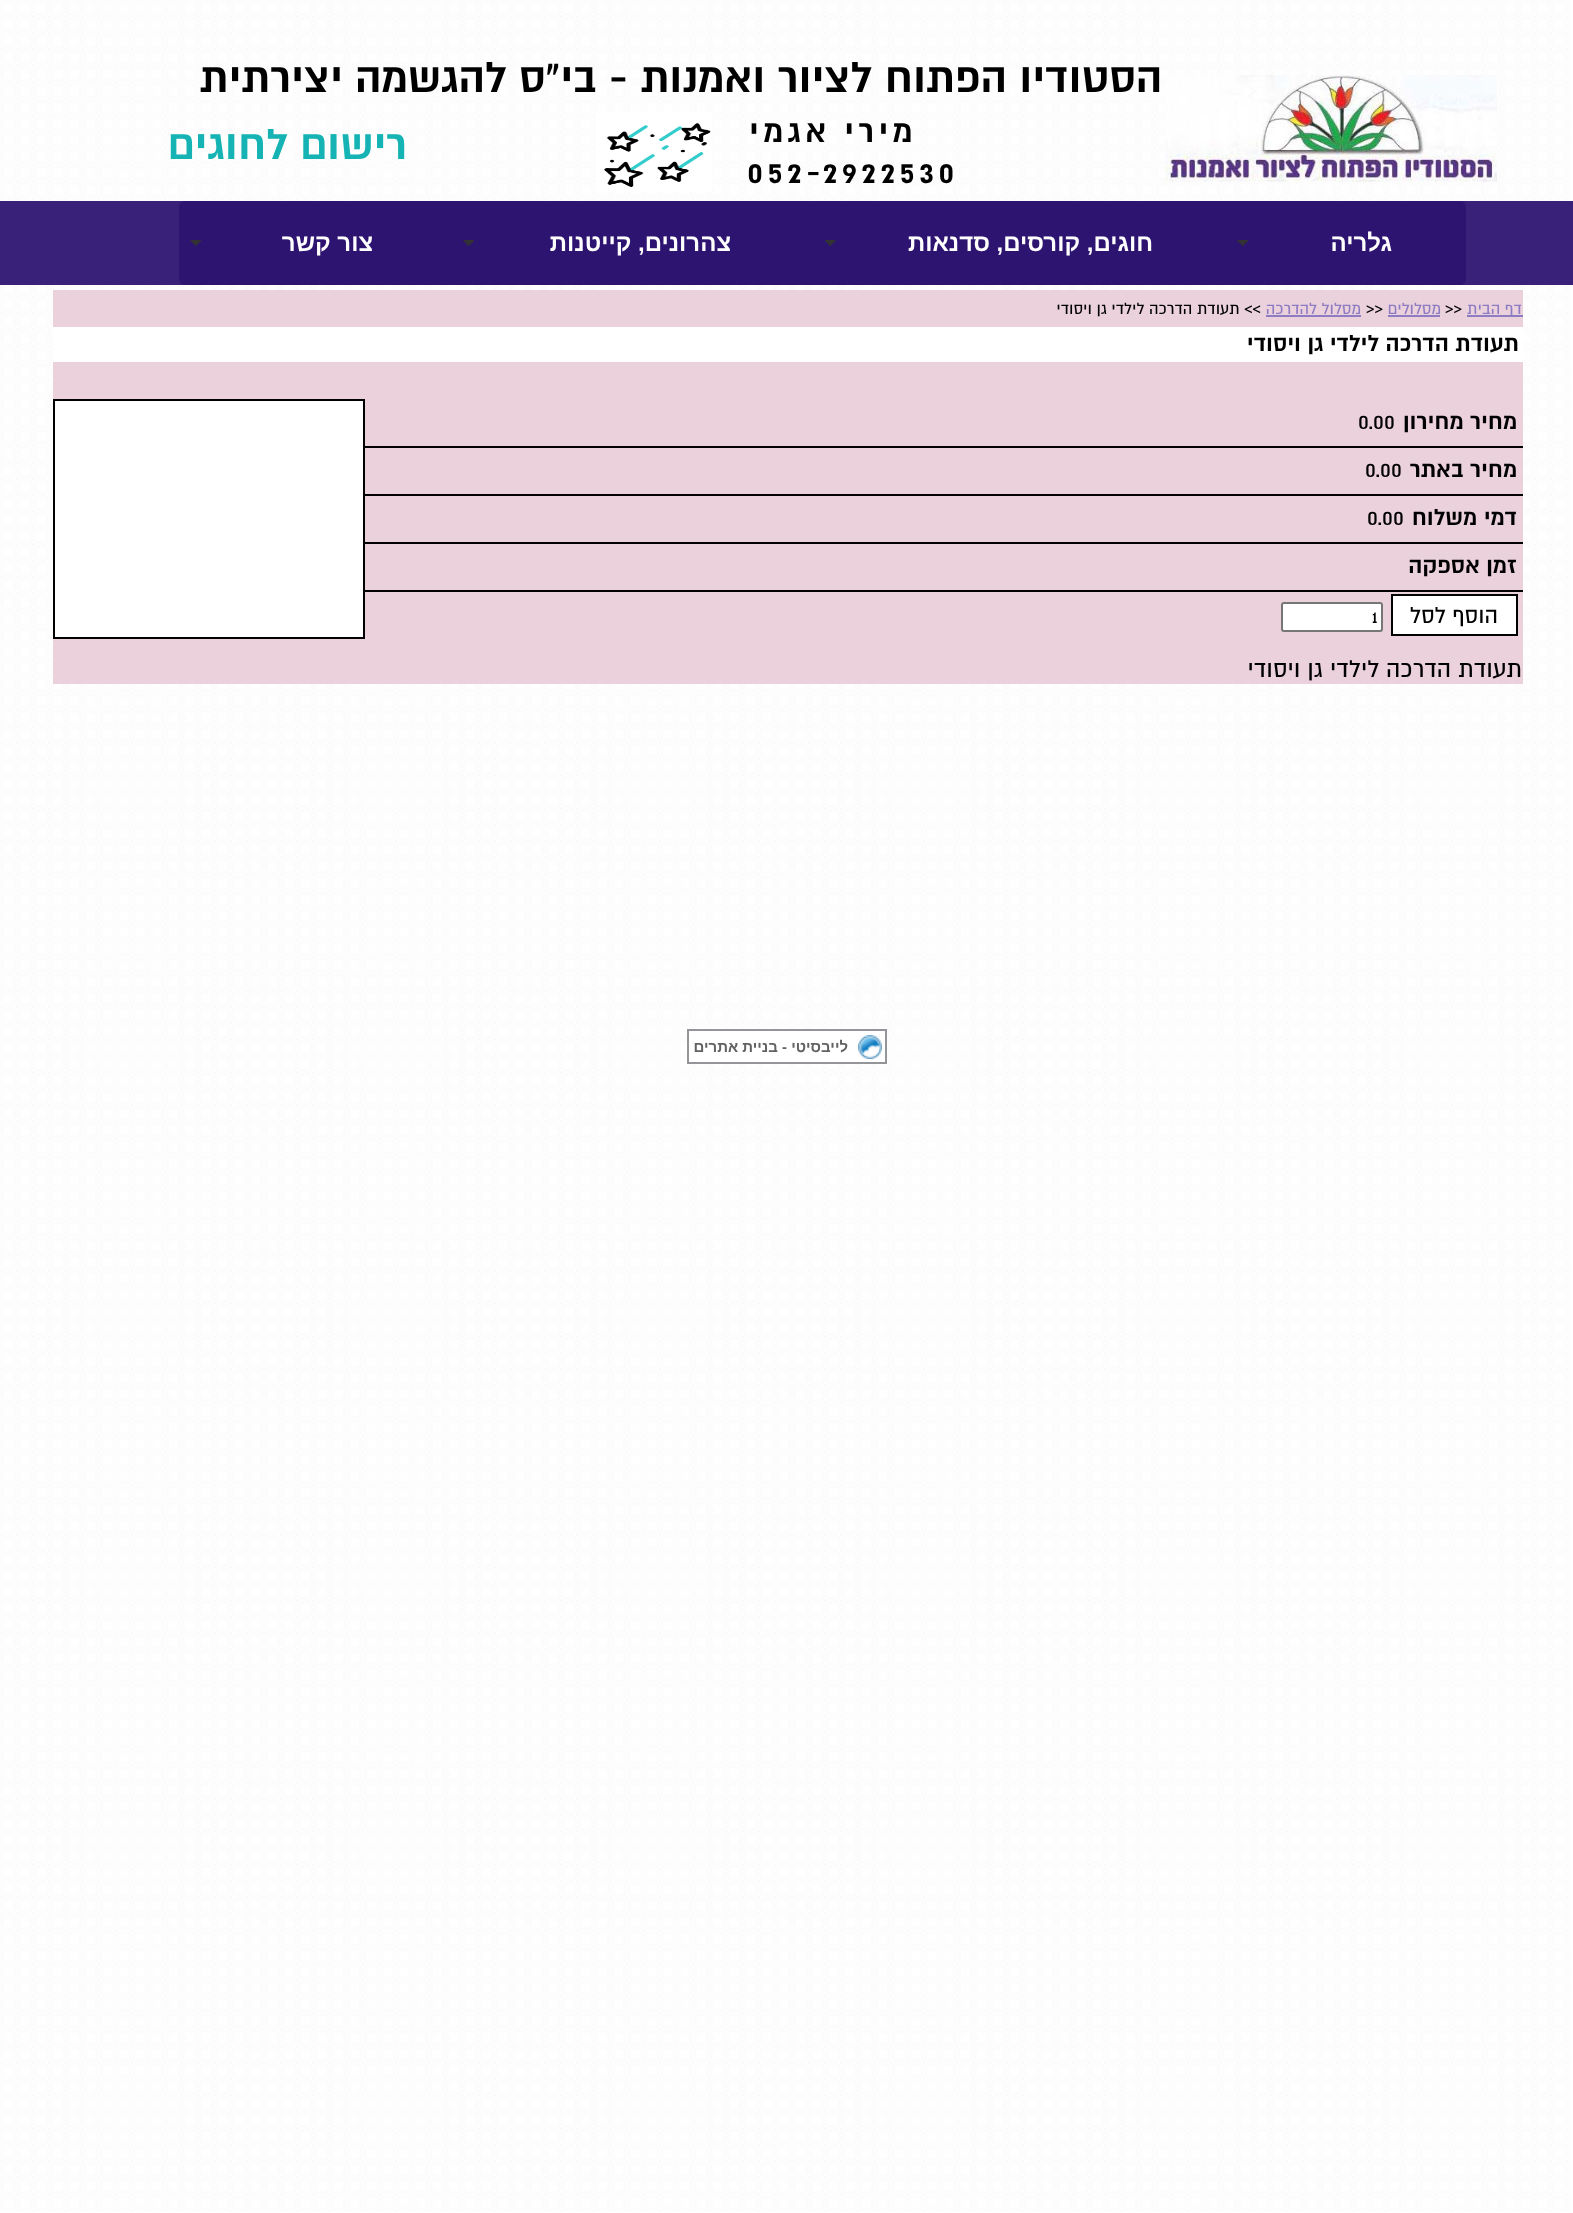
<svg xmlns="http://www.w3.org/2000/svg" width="1573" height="2213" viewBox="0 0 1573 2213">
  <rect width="100%" height="100%" fill="rgb(255,255,255)"/>
  <image x="0" y="0" width="1570" height="2212" href="pic1.png"/>
  <image x="1165" y="75" width="332" height="107" href="pic2.png"/>
  <text x="1162" y="92" font-family="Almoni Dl" font-size="48" font-weight="bold" direction="rtl" fill="rgb(0,0,0)">הסטודיו הפתוח לציור ואמנות - בי"ס להגשמה יצירתית</text>
  <text x="917" y="142" font-family="Almoni Dl" font-size="36" font-weight="bold" letter-spacing="4.5" direction="rtl" fill="rgb(0,0,0)">מירי אגמי</text>
  <image x="596" y="112" width="116" height="80" href="pic3.png"/>
  <text x="407" y="159" font-family="Almoni Dl" font-size="48" font-weight="bold" direction="rtl" fill="rgb(21,179,179)">רישום לחוגים</text>
  <text x="747" y="183" font-family="Almoni Dl" font-size="36" font-weight="bold" letter-spacing="4.5" fill="rgb(0,0,0)">052-2922530</text>
  <rect x="0" y="201" width="1573" height="84" fill="rgba(45,19,113,0.94)"/>
  <rect x="179" y="201" width="1287" height="84" rx="6" fill="rgb(46,20,113)"/>
  <image x="1237" y="240" width="11" height="6" href="pic4.png"/>
  <text x="1392" y="251" font-family="Liberation Sans" font-size="24" font-weight="bold" direction="rtl" fill="rgb(255,255,255)">גלריה</text>
  <image x="825" y="240" width="11" height="6" href="pic5.png"/>
  <text x="1153" y="251" font-family="Liberation Sans" font-size="24" font-weight="bold" direction="rtl" fill="rgb(255,255,255)">חוגים, קורסים, סדנאות</text>
  <image x="463" y="240" width="11" height="6" href="pic4.png"/>
  <text x="731" y="251" font-family="Liberation Sans" font-size="24" font-weight="bold" direction="rtl" fill="rgb(255,255,255)">צהרונים, קייטנות</text>
  <image x="190" y="240" width="11" height="6" href="pic4.png"/>
  <text x="373" y="251" font-family="Liberation Sans" font-size="24" font-weight="bold" direction="rtl" fill="rgb(255,255,255)">צור קשר</text>
  <rect x="53" y="290" width="1470" height="394" fill="rgb(234,209,220)"/>
  <rect x="1467" y="315" width="56" height="2" fill="rgb(142,124,195)"/>
  <text x="1522" y="314" font-family="Almoni Dl" font-size="18" direction="rtl" fill="rgb(142,124,195)">דף הבית</text>
  <text x="1445" y="314" font-family="Almoni Dl" font-size="18" fill="rgb(0,0,0)">&gt;&gt;</text>
  <text x="1441" y="314" font-family="Almoni Dl" font-size="18" direction="rtl" fill="rgb(142,124,195)">מסלולים</text>
  <rect x="1388" y="315" width="52" height="2" fill="rgb(142,124,195)"/>
  <text x="1366" y="314" font-family="Almoni Dl" font-size="18" fill="rgb(0,0,0)">&gt;&gt;</text>
  <text x="1361" y="314" font-family="Almoni Dl" font-size="18" direction="rtl" fill="rgb(142,124,195)">מסלול להדרכה</text>
  <rect x="1266" y="315" width="95" height="2" fill="rgb(142,124,195)"/>
  <text x="1261" y="314" font-family="Almoni Dl" font-size="18" direction="rtl" fill="rgb(0,0,0)">&gt;&gt; תעודת הדרכה לילדי גן ויסודי</text>
  <rect x="53" y="327" width="1470" height="35" fill="rgb(255,255,255)"/>
  <text x="1519" y="351" font-family="Almoni Dl" font-size="25.5" font-weight="bold" direction="rtl" fill="rgb(0,0,0)">תעודת הדרכה לילדי גן ויסודי</text>
  <rect x="365" y="446" width="1158" height="2" fill="rgb(0,0,0)"/>
  <text x="1517" y="429" font-family="Almoni Dl" font-size="25.5" font-weight="bold" direction="rtl" fill="rgb(0,0,0)">מחיר מחירון</text>
  <text x="1358" y="429" font-family="Almoni Dl" font-size="25.5" fill="rgb(0,0,0)">0.00</text>
  <rect x="54" y="400" width="310" height="238" fill="rgb(255,255,255)" stroke="rgb(0,0,0)" stroke-width="2"/>
  <rect x="365" y="494" width="1158" height="2" fill="rgb(0,0,0)"/>
  <text x="1517" y="477" font-family="Almoni Dl" font-size="25.5" font-weight="bold" direction="rtl" fill="rgb(0,0,0)">מחיר באתר</text>
  <text x="1365" y="477" font-family="Almoni Dl" font-size="25.5" fill="rgb(0,0,0)">0.00</text>
  <rect x="365" y="542" width="1158" height="2" fill="rgb(0,0,0)"/>
  <text x="1517" y="525" font-family="Almoni Dl" font-size="25.5" font-weight="bold" direction="rtl" fill="rgb(0,0,0)">דמי משלוח</text>
  <text x="1367" y="525" font-family="Almoni Dl" font-size="25.5" fill="rgb(0,0,0)">0.00</text>
  <rect x="365" y="590" width="1158" height="2" fill="rgb(0,0,0)"/>
  <text x="1517" y="573" font-family="Almoni Dl" font-size="25.5" font-weight="bold" direction="rtl" fill="rgb(0,0,0)">זמן אספקה</text>
  <rect x="1392" y="595" width="125" height="40" fill="rgb(255,255,255)" stroke="rgb(0,0,0)" stroke-width="2"/>
  <text x="1498" y="623" font-family="Almoni Dl" font-size="25.5" direction="rtl" fill="rgb(0,0,0)">הוסף לסל</text>
  <rect x="1282" y="603" width="100" height="28" rx="2" fill="rgb(255,255,255)" stroke="rgb(118,118,118)" stroke-width="2"/>
  <text x="1372" y="623" font-family="Almoni Dl" font-size="20" fill="rgb(0,0,0)">1</text>
  <text x="1522" y="677" font-family="Almoni Dl" font-size="27" direction="rtl" fill="rgb(0,0,0)">תעודת הדרכה לילדי גן ויסודי</text>
  <rect x="689" y="1031" width="196" height="31" fill="rgb(255,255,255)"/>
  <image x="858" y="1035" width="24" height="24" href="pic6.png"/>
  <rect x="688" y="1030" width="198" height="33" fill="none" stroke="rgb(147,149,152)" stroke-width="2"/>
  <text x="848" y="1052" font-family="Liberation Sans" font-size="15" font-weight="bold" direction="rtl" fill="rgb(97,98,98)">לייבסיטי - בניית אתרים</text>
</svg>
